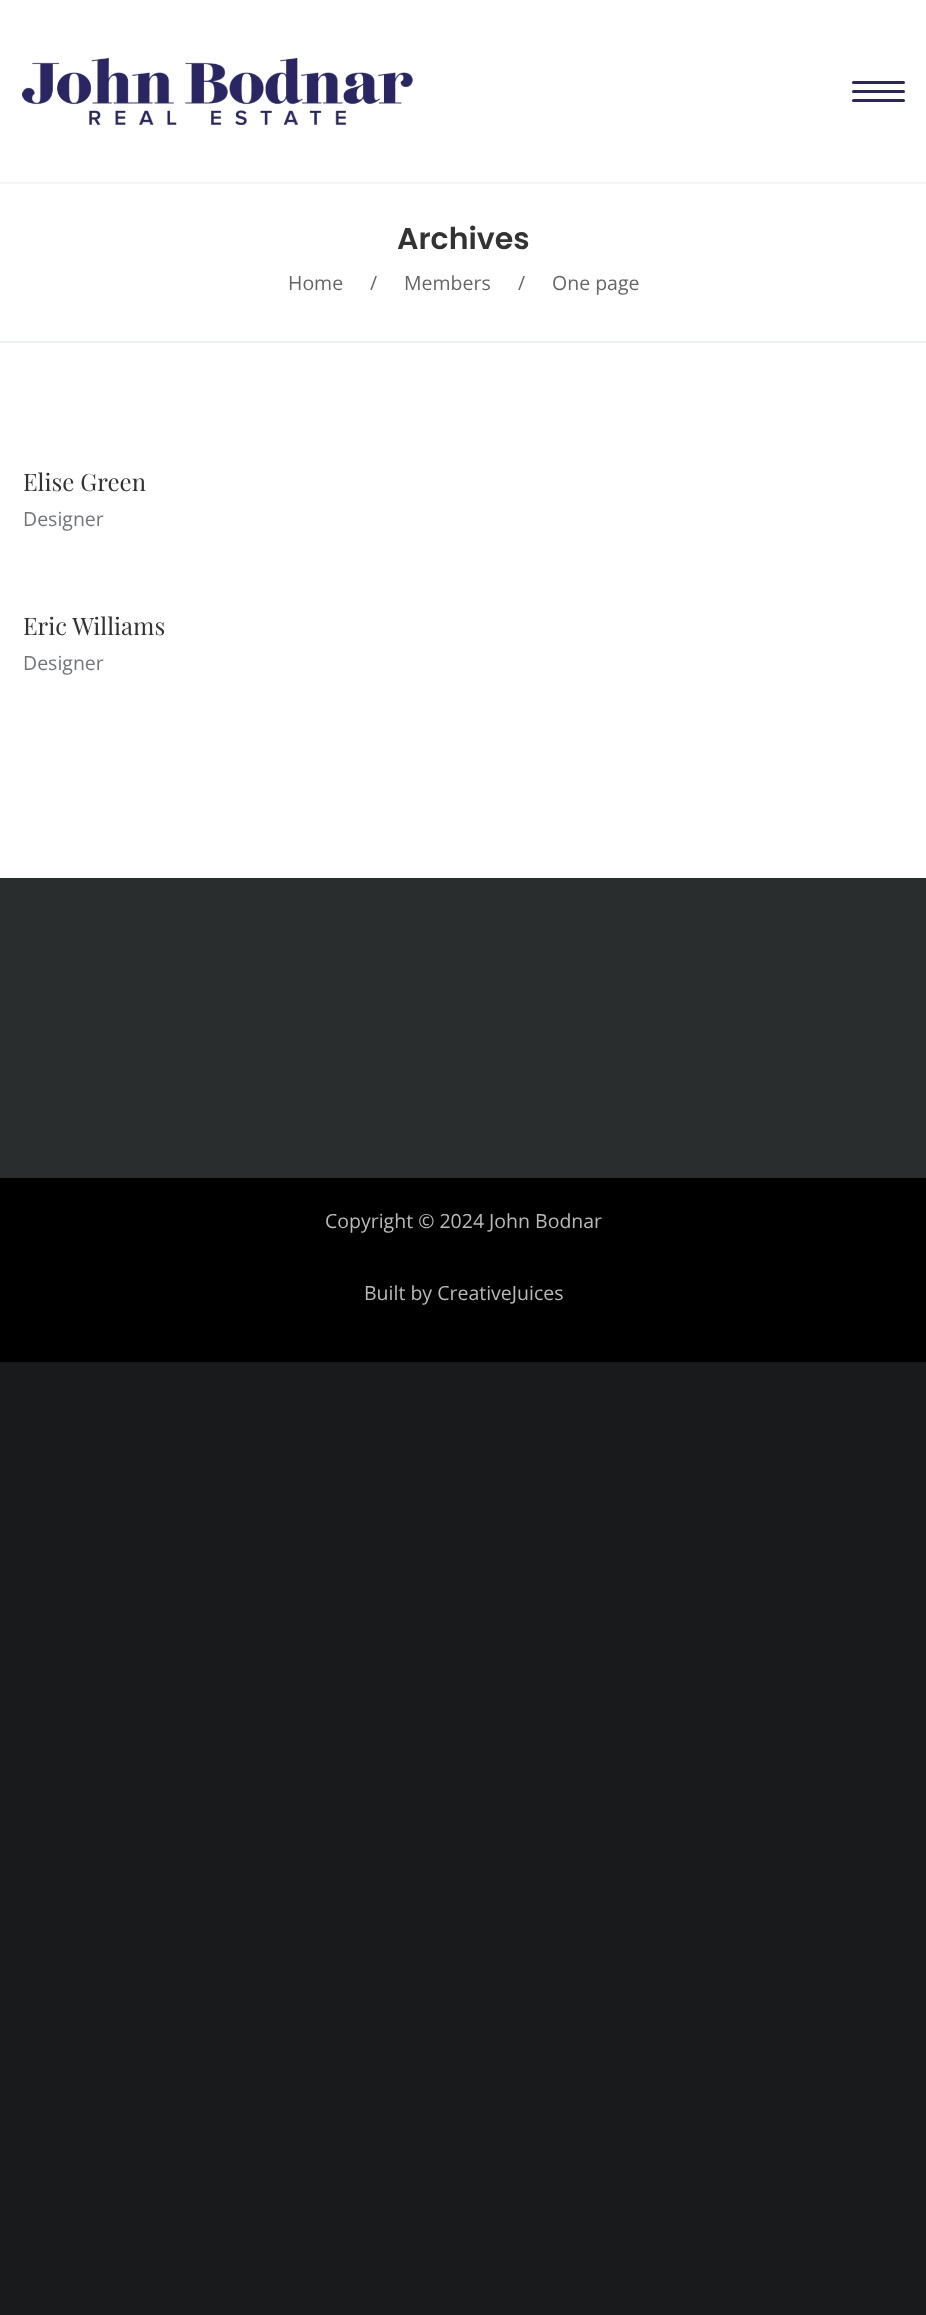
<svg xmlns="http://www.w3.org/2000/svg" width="926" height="2315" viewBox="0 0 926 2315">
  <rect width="100%" height="100%" fill="rgb(25,26,27)"/>
  <rect x="0" y="0" width="926" height="878" fill="rgb(255,255,255)"/>
  <rect x="0" y="182" width="926" height="2" fill="rgba(235,235,235,0.5)"/>
  <image x="22" y="57" width="391" height="68" href="pic1.png"/>
  <rect x="852" y="90" width="53" height="3" rx="1.5" fill="rgb(41,38,99)"/>
  <rect x="852" y="81" width="53" height="3" rx="1.5" fill="rgb(41,38,99)"/>
  <rect x="852" y="99" width="53" height="3" rx="1.5" fill="rgb(41,38,99)"/>
  <rect x="0" y="341" width="926" height="2" fill="rgb(236,240,241)"/>
  <text x="397" y="249" font-family="Poppins" font-size="30" font-weight="600" fill="rgb(51,51,51)">Archives</text>
  <g font-family="Open Sans" font-size="19.5" fill="rgb(102,102,102)">
    <text x="288" y="290">Home</text>
    <text x="370" y="290">/</text>
    <text x="404" y="290">Members</text>
    <text x="518" y="290">/</text>
    <text x="552" y="290">One page</text>
  </g>
  <text x="23" y="491" font-family="Playfair Display" font-size="24" fill="rgb(51,51,51)">Elise Green</text>
  <text x="23" y="526" font-family="Open Sans" font-size="19.5" fill="rgb(114,117,125)">Designer</text>
  <text x="23" y="635" font-family="Playfair Display" font-size="24" fill="rgb(51,51,51)">Eric Williams</text>
  <text x="23" y="670" font-family="Open Sans" font-size="19.5" fill="rgb(114,117,125)">Designer</text>
  <rect x="0" y="878" width="926" height="300" fill="rgb(42,45,46)"/>
  <rect x="0" y="1178" width="926" height="184" fill="rgb(0,0,0)"/>
  <g font-family="Open Sans" font-size="19.5" fill="rgb(186,186,186)">
    <text x="325" y="1228">Copyright © 2024 John Bodnar</text>
    <text x="364" y="1300">Built by CreativeJuices</text>
  </g>
</svg>
